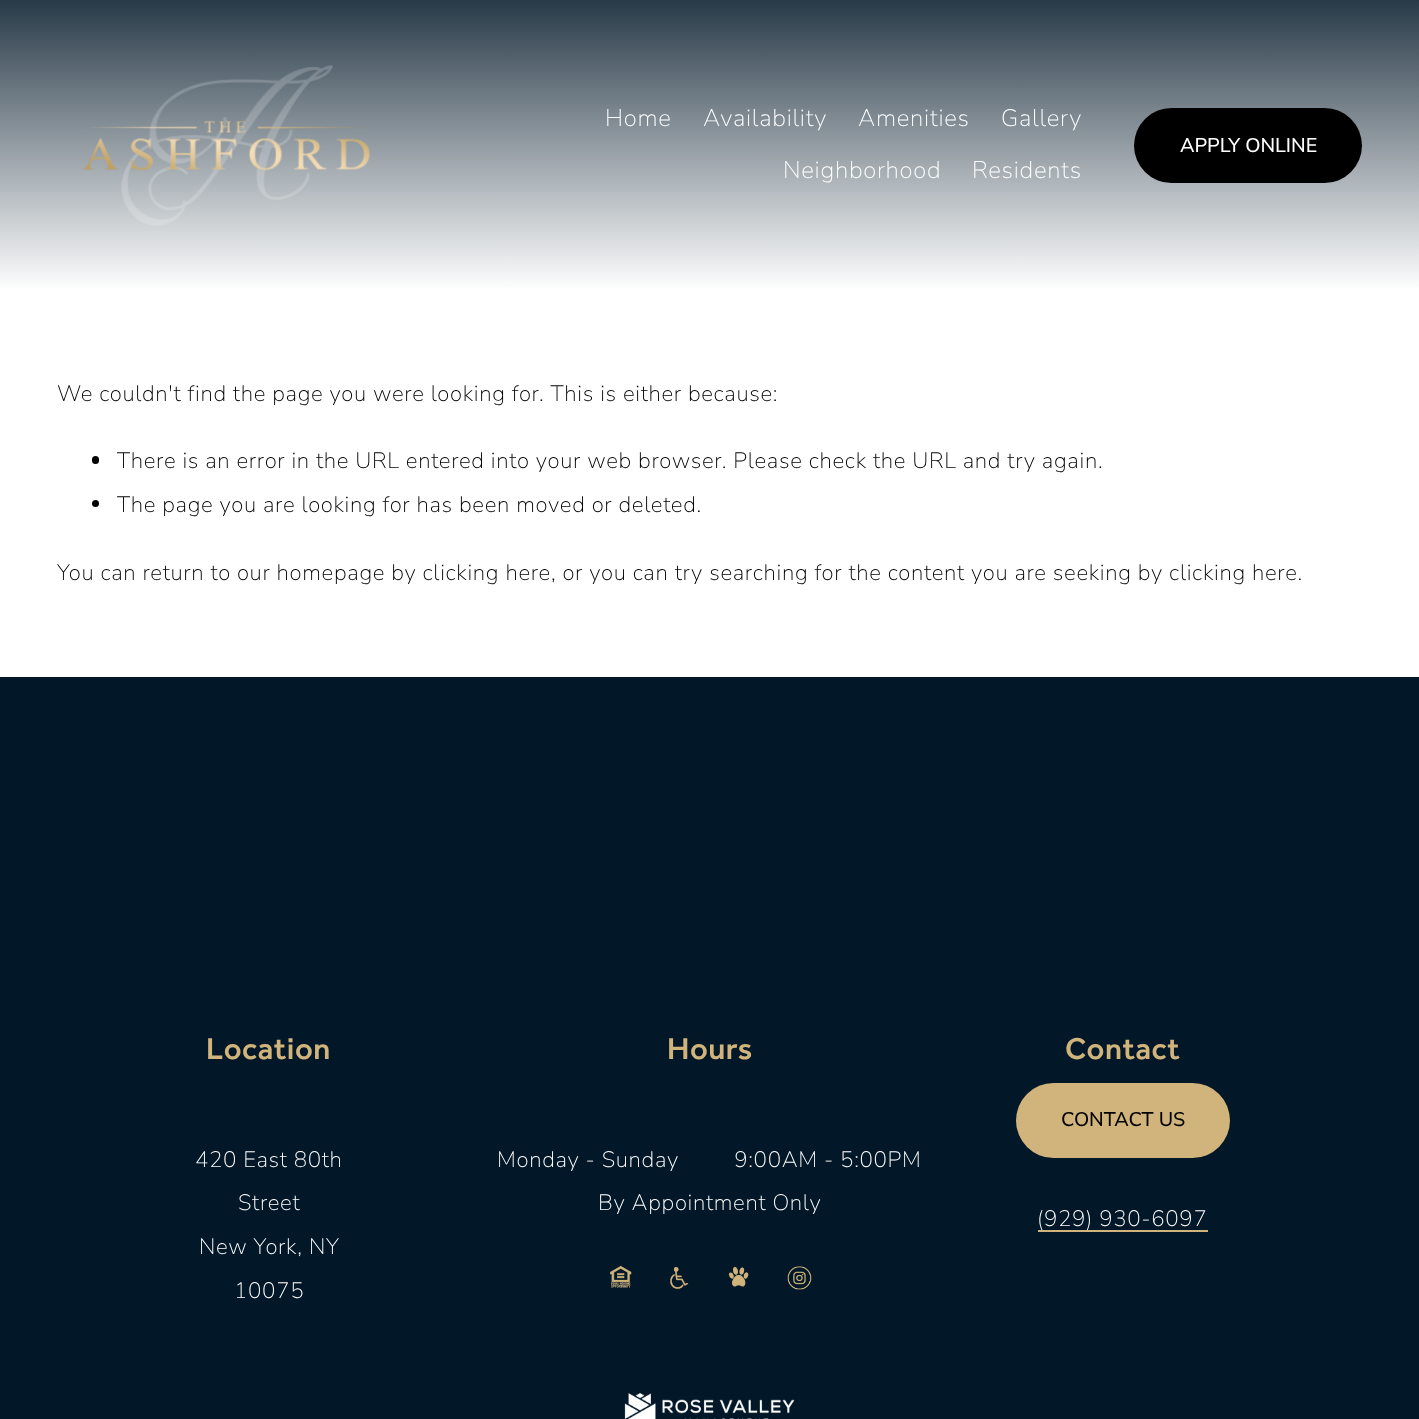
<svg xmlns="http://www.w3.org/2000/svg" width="1419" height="1419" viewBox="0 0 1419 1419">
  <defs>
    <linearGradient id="g1" gradientUnits="userSpaceOnUse" x1="710" y1="0" x2="710" y2="291"><stop offset="0" stop-color="rgb(40,58,72)"/><stop offset="1" stop-color="rgb(255,255,255)"/></linearGradient>
  </defs>
  <rect width="100%" height="100%" fill="rgb(255,255,255)"/>
  <rect x="0" y="0" width="1419" height="288" fill="url(#g1)"/>
  <image x="82" y="65" width="288" height="161" href="pic1.png"/>
  <g font-family="Nunito Sans" font-size="24" font-weight="200" letter-spacing="0.75" fill="rgb(255,255,255)">
    <text x="605" y="126">Home</text>
    <text x="703" y="126">Availability</text>
    <text x="858" y="126">Amenities</text>
    <text x="1001" y="126">Gallery</text>
    <text x="783" y="178">Neighborhood</text>
    <text x="972" y="178">Residents</text>
  </g>
  <rect x="1134" y="108" width="228" height="75" rx="37.5" fill="rgb(0,0,0)"/>
  <text x="1180" y="152" font-family="Nunito Sans" font-size="19.75" font-weight="500" fill="rgb(255,255,255)">APPLY ONLINE</text>
  <text x="57" y="401" font-family="Nunito Sans" font-size="22.3" font-weight="200" letter-spacing="0.67" fill="rgb(0,0,0)">We couldn't find the page you were looking for. This is either because:</text>
  <rect x="92" y="456" width="7" height="8" rx="3.5" fill="rgb(0,0,0)"/>
  <text x="117" y="468" font-family="Nunito Sans" font-size="22.3" font-weight="200" letter-spacing="0.67" fill="rgb(0,0,0)">There is an error in the URL entered into your web browser. Please check the URL and try again.</text>
  <circle cx="95.5" cy="503.5" r="3.5" fill="rgb(0,0,0)"/>
  <g font-family="Nunito Sans" font-size="22.3" font-weight="200" letter-spacing="0.67" fill="rgb(0,0,0)">
    <text x="117" y="512">The page you are looking for has been moved or deleted.</text>
    <text x="57" y="580">You can return to our homepage by clicking here, or you can try searching for the content you are seeking by clicking here.</text>
  </g>
  <rect x="0" y="677" width="1419" height="742" fill="rgb(2,23,39)"/>
  <text x="206" y="1059" font-family="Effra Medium" font-size="31" font-weight="500" letter-spacing="0.5" fill="rgb(209,180,123)">Location</text>
  <g font-family="Nunito Sans" font-size="22.3" font-weight="200" letter-spacing="0.67" fill="rgb(255,255,255)">
    <text x="195" y="1167">420 East 80th</text>
    <text x="238" y="1210">Street</text>
    <text x="199" y="1254">New York, NY</text>
    <text x="234" y="1298">10075</text>
  </g>
  <text x="667" y="1059" font-family="Effra Medium" font-size="31" font-weight="500" letter-spacing="0.5" fill="rgb(209,180,123)">Hours</text>
  <g font-family="Nunito Sans" font-size="22.3" font-weight="200" letter-spacing="0.67" fill="rgb(255,255,255)">
    <text x="497" y="1167" xml:space="preserve">Monday - Sunday         9:00AM - 5:00PM</text>
    <text x="598" y="1210">By Appointment Only</text>
  </g>
  <text x="1065" y="1059" font-family="Effra Medium" font-size="31" font-weight="500" letter-spacing="0.5" fill="rgb(209,180,123)">Contact</text>
  <rect x="1016" y="1083" width="214" height="75" rx="37.5" fill="rgb(209,180,123)"/>
  <text x="1061" y="1126" font-family="Nunito Sans" font-size="19.75" font-weight="500" fill="rgb(0,0,0)">CONTACT US</text>
  <rect x="1038" y="1230" width="170" height="2" fill="rgb(209,180,123)"/>
  <text x="1037" y="1226" font-family="Nunito Sans" font-size="22.3" font-weight="200" letter-spacing="0.67" fill="rgb(255,255,255)">(929) 930-6097</text>
  <image x="610" y="1266" width="202" height="24" href="pic2.png"/>
  <image x="624" y="1393" width="171" height="26" href="pic3.png"/>
</svg>
